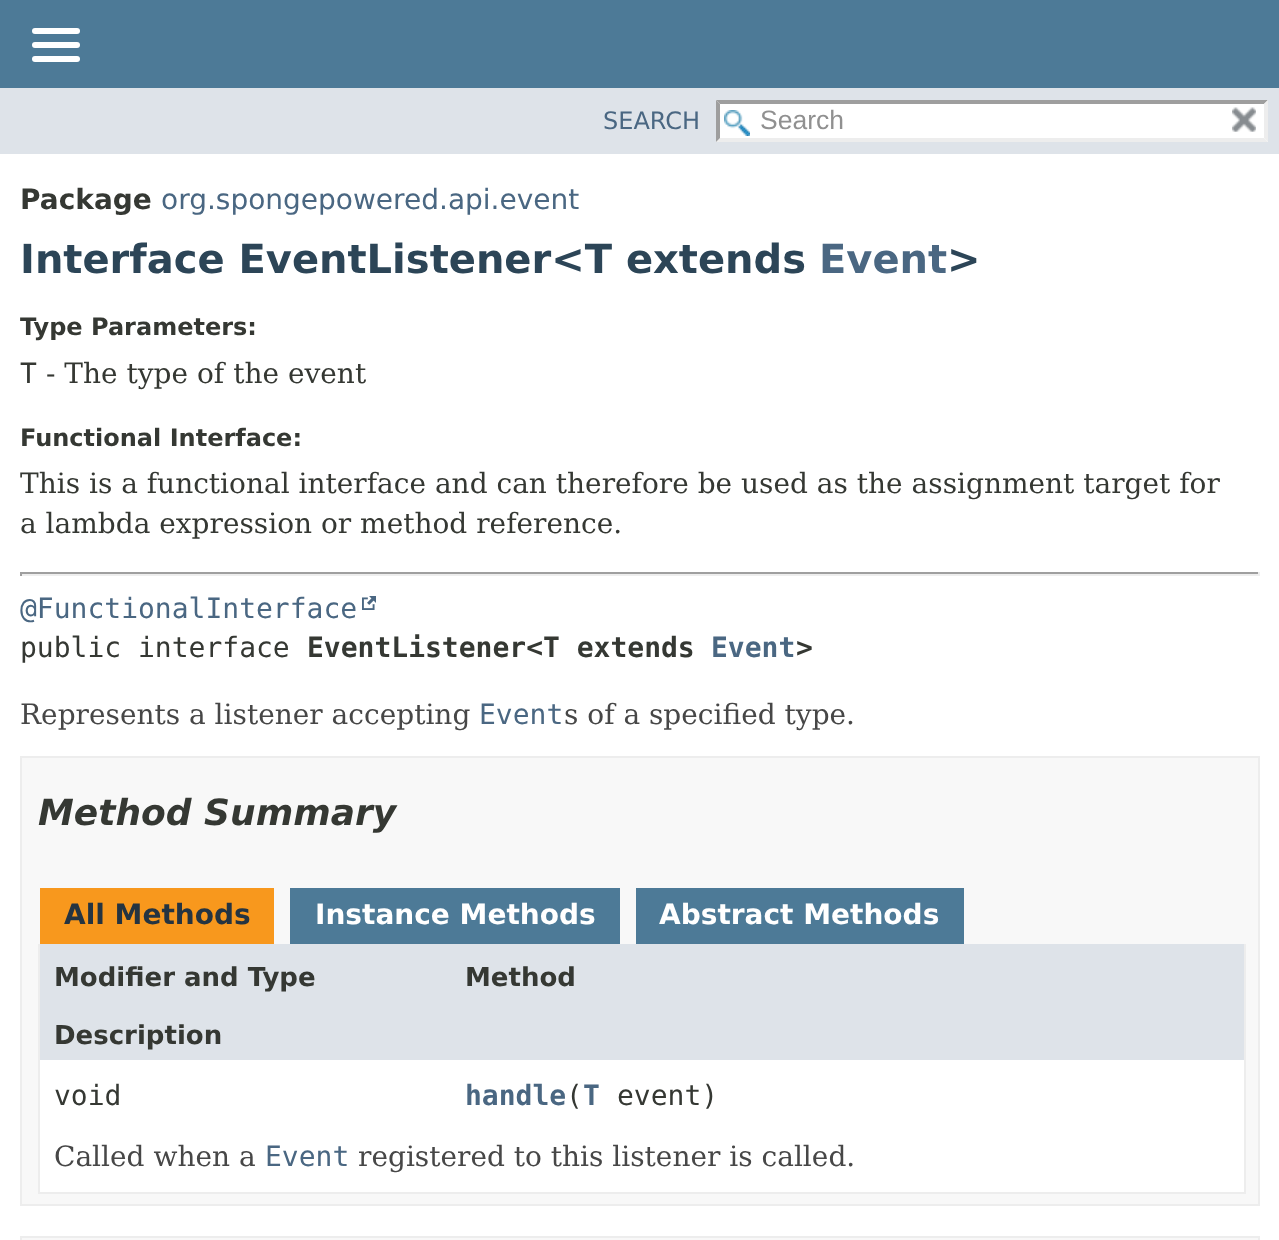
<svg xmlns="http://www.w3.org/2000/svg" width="1279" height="1240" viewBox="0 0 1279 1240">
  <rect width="100%" height="100%" fill="rgb(255,255,255)"/>
  <rect x="0" y="0" width="1279" height="88" fill="rgb(77,122,151)"/>
  <rect x="32" y="28" width="48" height="6" rx="3" fill="rgb(255,255,255)"/>
  <rect x="32" y="42" width="48" height="6" rx="3" fill="rgb(255,255,255)"/>
  <rect x="32" y="56" width="48" height="6" rx="3" fill="rgb(255,255,255)"/>
  <rect x="0" y="88" width="1279" height="66" fill="rgb(222,227,233)"/>
  <text x="603" y="129" font-family="DejaVu Sans" font-size="24" fill="rgb(74,103,130)">SEARCH</text>
  <rect x="716" y="100" width="552" height="42" fill="rgb(255,255,255)"/>
  <image x="724" y="110" width="26" height="26" href="pic1.png"/>
  <path d="M716 100H1268L1264 104H720Z" fill="rgb(158,158,158)"/>
  <path d="M1268 100V142L1264 138V104Z" fill="rgb(237,237,237)"/>
  <path d="M1268 142H716L720 138H1264Z" fill="rgb(237,237,237)"/>
  <path d="M716 142V100L720 104V138Z" fill="rgb(158,158,158)"/>
  <text x="760" y="129" font-family="Liberation Sans" font-size="26.5" fill="rgb(144,144,144)">Search</text>
  <image x="1232" y="107" width="24" height="25" href="pic2.png"/>
  <text x="20" y="209" font-family="DejaVu Sans" font-size="28" font-weight="bold" fill="rgb(53,56,51)">Package</text>
  <text x="161" y="209" font-family="DejaVu Sans" font-size="28" fill="rgb(74,103,130)">org.spongepowered.api.event</text>
  <text x="20" y="273" font-family="DejaVu Sans" font-size="40" font-weight="bold" fill="rgb(44,69,87)">Interface EventListener&lt;T extends</text>
  <text x="819" y="273" font-family="DejaVu Sans" font-size="40" font-weight="bold" fill="rgb(74,103,130)">Event</text>
  <text x="947" y="273" font-family="DejaVu Sans" font-size="40" font-weight="bold" fill="rgb(44,69,87)">&gt;</text>
  <text x="20" y="335" font-family="DejaVu Sans" font-size="24" font-weight="bold" fill="rgb(53,56,51)">Type Parameters:</text>
  <text x="20" y="383" font-family="DejaVu Sans Mono" font-size="28" fill="rgb(53,56,51)">T</text>
  <text x="46" y="383" font-family="DejaVu Serif" font-size="28" fill="rgb(53,56,51)">- The type of the event</text>
  <text x="20" y="446" font-family="DejaVu Sans" font-size="24" font-weight="bold" fill="rgb(53,56,51)">Functional Interface:</text>
  <g font-family="DejaVu Serif" font-size="28" fill="rgb(53,56,51)">
    <text>
      <tspan x="20" y="493">This is a functional interface and can therefore be used as the assignment target for</tspan>
      <tspan x="20" y="533">a lambda expression or method reference.</tspan>
    </text>
  </g>
  <rect x="20" y="572" width="1240" height="2" fill="rgb(159,159,159)"/>
  <rect x="1258" y="572" width="2" height="4" fill="rgb(238,238,238)"/>
  <rect x="20" y="574" width="1240" height="2" fill="rgb(238,238,238)"/>
  <rect x="20" y="572" width="2" height="4" fill="rgb(159,159,159)"/>
  <text x="20" y="618" font-family="DejaVu Sans Mono" font-size="28" fill="rgb(74,103,130)">@FunctionalInterface</text>
  <image x="362" y="596" width="14" height="14" href="pic3.png"/>
  <text x="20" y="657" font-family="DejaVu Sans Mono" font-size="28" fill="rgb(53,56,51)">public interface</text>
  <text x="307" y="657" font-family="DejaVu Sans Mono" font-size="28" font-weight="bold" fill="rgb(53,56,51)">EventListener&lt;T extends</text>
  <text x="711" y="657" font-family="DejaVu Sans Mono" font-size="28" font-weight="bold" fill="rgb(74,103,130)">Event</text>
  <text x="796" y="657" font-family="DejaVu Sans Mono" font-size="28" font-weight="bold" fill="rgb(53,56,51)">&gt;</text>
  <text x="20" y="724" font-family="DejaVu Serif" font-size="28" fill="rgb(71,71,71)">Represents a listener accepting</text>
  <text x="479" y="724" font-family="DejaVu Sans Mono" font-size="28" fill="rgb(74,103,130)">Event</text>
  <text x="564" y="724" font-family="DejaVu Serif" font-size="28" fill="rgb(71,71,71)">s of a specified type.</text>
  <rect x="21" y="757" width="1238" height="448" fill="rgb(248,248,248)" stroke="rgb(237,237,237)" stroke-width="2"/>
  <text x="38" y="825" font-family="DejaVu Sans" font-size="36" font-weight="bold" font-style="italic" fill="rgb(53,56,51)">Method Summary</text>
  <rect x="40" y="888" width="234" height="56" fill="rgb(248,152,29)"/>
  <text x="64" y="924" font-family="DejaVu Sans" font-size="28" font-weight="bold" fill="rgb(37,52,65)">All Methods</text>
  <rect x="290" y="888" width="330" height="56" fill="rgb(77,122,151)"/>
  <text x="315" y="924" font-family="DejaVu Sans" font-size="28" font-weight="bold" fill="rgb(255,255,255)">Instance Methods</text>
  <rect x="636" y="888" width="328" height="56" fill="rgb(77,122,151)"/>
  <text x="659" y="924" font-family="DejaVu Sans" font-size="28" font-weight="bold" fill="rgb(255,255,255)">Abstract Methods</text>
  <rect x="1244" y="944" width="2" height="250" fill="rgb(237,237,237)"/>
  <rect x="38" y="1192" width="1208" height="2" fill="rgb(237,237,237)"/>
  <rect x="38" y="944" width="2" height="250" fill="rgb(237,237,237)"/>
  <rect x="40" y="944" width="1204" height="116" fill="rgb(222,227,233)"/>
  <g font-family="DejaVu Sans" font-size="26" font-weight="bold" fill="rgb(53,56,51)">
    <text x="54" y="986">Modifier and Type</text>
    <text x="465" y="986">Method</text>
    <text x="54" y="1044">Description</text>
  </g>
  <rect x="40" y="1060" width="1204" height="132" fill="rgb(255,255,255)"/>
  <text x="54" y="1105" font-family="DejaVu Sans Mono" font-size="28" fill="rgb(53,56,51)">void</text>
  <text x="465" y="1105" font-family="DejaVu Sans Mono" font-size="28" font-weight="bold" fill="rgb(74,103,130)">handle T</text>
  <g font-family="DejaVu Sans Mono" font-size="28" fill="rgb(53,56,51)">
    <text x="566" y="1105">(</text>
    <text x="617" y="1105">event)</text>
  </g>
  <text x="54" y="1166" font-family="DejaVu Serif" font-size="28" fill="rgb(71,71,71)">Called when a</text>
  <text x="265" y="1166" font-family="DejaVu Sans Mono" font-size="28" fill="rgb(74,103,130)">Event</text>
  <text x="358" y="1166" font-family="DejaVu Serif" font-size="28" fill="rgb(71,71,71)">registered to this listener is called.</text>
  <rect x="21" y="1237" width="1238" height="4" fill="rgb(248,248,248)" stroke="rgb(237,237,237)" stroke-width="2"/>
</svg>
